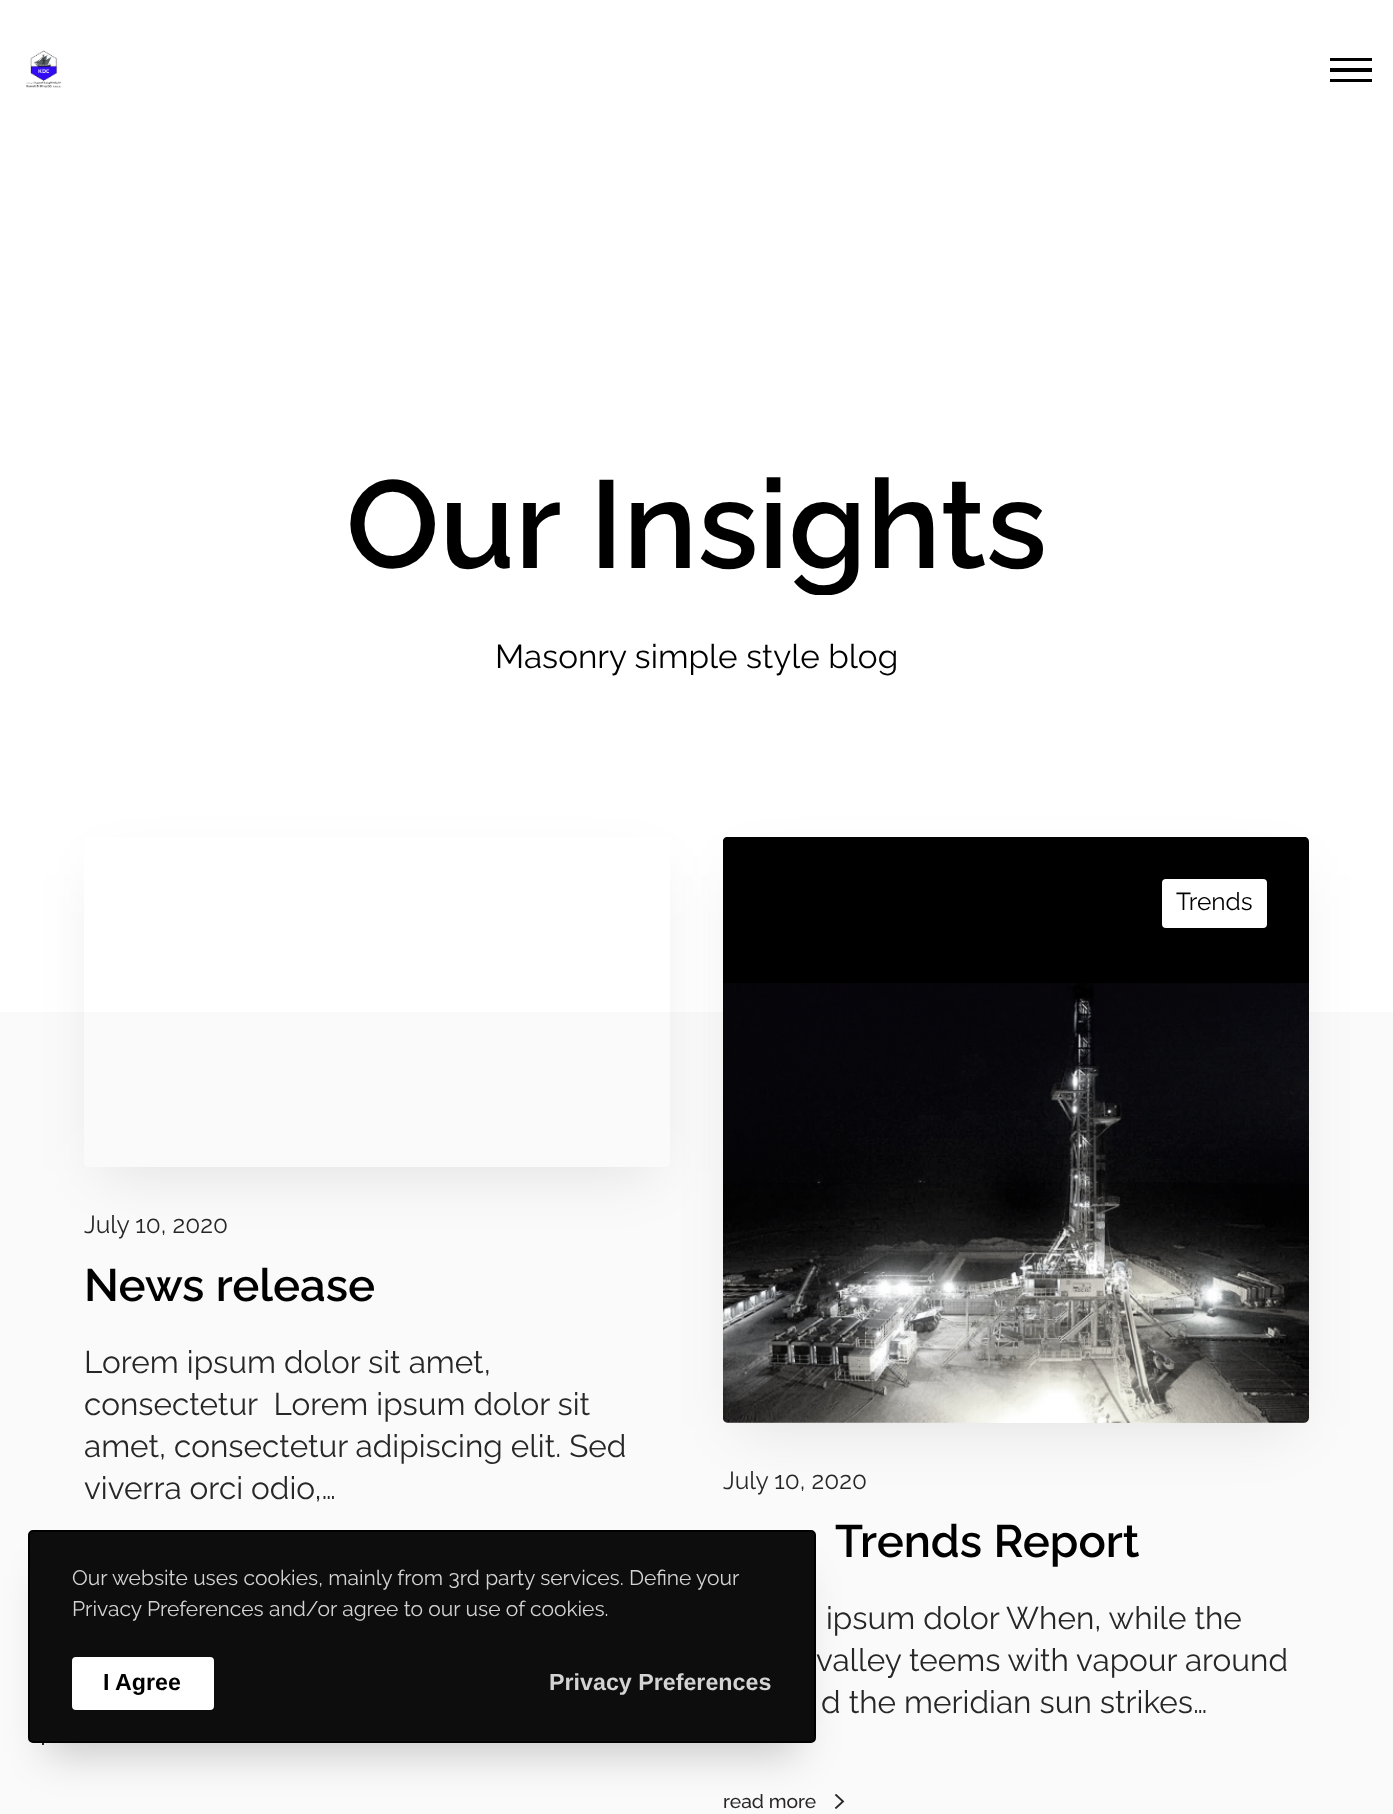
<svg xmlns="http://www.w3.org/2000/svg" width="1393" height="1814" viewBox="0 0 1393 1814">
  <defs>
    <clipPath id="clip1"><rect x="347" y="455" width="700" height="140"/></clipPath>
    <clipPath id="clip2"><path d="M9 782H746V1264H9ZM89 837H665C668 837 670 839 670 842V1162C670 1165 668 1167 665 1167H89C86 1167 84 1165 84 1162V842C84 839 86 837 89 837Z" clip-rule="evenodd"/></clipPath>
  </defs>
  <rect width="100%" height="100%" fill="rgb(255,255,255)"/>
  <image x="26" y="50" width="36" height="38" href="pic1.png"/>
  <path d="M1372 79V82H1330V79ZM1372 68V72H1330V68ZM1372 58V61H1330V58Z" fill="rgb(0,0,0)"/>
  <g clip-path="url(#clip1)">
    <text x="346" y="568" font-family="Raleway" font-size="124.25" font-weight="600" fill="rgb(0,0,0)">Our Insights</text>
  </g>
  <text x="495" y="668" font-family="Raleway" font-size="33.25" fill="rgb(0,0,0)">Masonry simple style blog</text>
  <rect x="0" y="1012" width="1393" height="802" fill="rgb(250,250,250)"/>
  <rect x="42" y="1743" width="2" height="2" fill="rgb(39,39,39)"/>
  <g clip-path="url(#clip2)">
    <rect x="102" y="875" width="551" height="296" fill="rgba(0,0,0,0.1)" filter="blur(30.5px)"/>
  </g>
  <text x="84" y="1233" font-family="Raleway" font-size="24.5" fill="rgb(39,39,39)">July 10, 2020</text>
  <text x="84" y="1301" font-family="Raleway" font-size="45.5" font-weight="600" fill="rgb(0,0,0)">News release</text>
  <g font-family="Raleway" font-size="31.5" fill="rgb(39,39,39)">
    <text xml:space="preserve"><tspan x="84" y="1373">Lorem ipsum dolor sit amet,</tspan><tspan x="84" y="1415">consectetur  Lorem ipsum dolor sit</tspan><tspan x="84" y="1457">amet, consectetur adipiscing elit. Sed</tspan><tspan x="84" y="1499">viverra orci odio,…</tspan></text>
  </g>
  <rect x="740" y="875" width="552" height="551" fill="rgba(0,0,0,0.1)" filter="blur(30.5px)"/>
  <image x="723" y="837" width="586" height="586" href="pic2.png"/>
  <rect x="1162" y="879" width="105" height="49" rx="4" fill="rgb(255,255,255)"/>
  <text x="1176" y="910" font-family="Raleway" font-size="24.5" fill="rgb(0,0,0)">Trends</text>
  <text x="723" y="1489" font-family="Raleway" font-size="24.5" fill="rgb(39,39,39)">July 10, 2020</text>
  <text x="835" y="1557" font-family="Raleway" font-size="45.5" font-weight="600" fill="rgb(0,0,0)">Trends Report</text>
  <g font-family="Raleway" font-size="31.5" fill="rgb(39,39,39)">
    <text x="826" y="1629">ipsum dolor When, while the</text>
    <text x="816" y="1671">valley teems with vapour around</text>
    <text x="821" y="1713">d the meridian sun strikes…</text>
  </g>
  <text x="723" y="1808" font-family="Raleway" font-size="19.25" font-weight="500" fill="rgb(39,39,39)">read more</text>
  <image x="834" y="1794" width="11" height="15" href="pic3.png"/>
  <rect x="46" y="1575" width="752" height="179" fill="rgba(0,0,0,0.2)" filter="blur(21px)"/>
  <rect x="29" y="1531" width="786" height="211" rx="4" fill="rgb(13,13,13)" stroke="rgb(0,0,0)" stroke-width="2"/>
  <g font-family="Raleway" font-size="21" fill="rgb(211,211,211)">
    <text>
      <tspan x="72" y="1585">Our website uses cookies, mainly from 3rd party services. Define your</tspan>
      <tspan x="72" y="1616">Privacy Preferences and/or agree to our use of cookies.</tspan>
    </text>
  </g>
  <rect x="72" y="1657" width="142" height="53" rx="4" fill="rgb(255,255,255)"/>
  <text x="103" y="1690" font-family="Liberation Sans" font-size="23.25" font-weight="bold" fill="rgb(0,0,0)">I Agree</text>
  <text x="549" y="1690" font-family="Liberation Sans" font-size="23.25" font-weight="bold" fill="rgb(211,211,211)">Privacy Preferences</text>
</svg>
